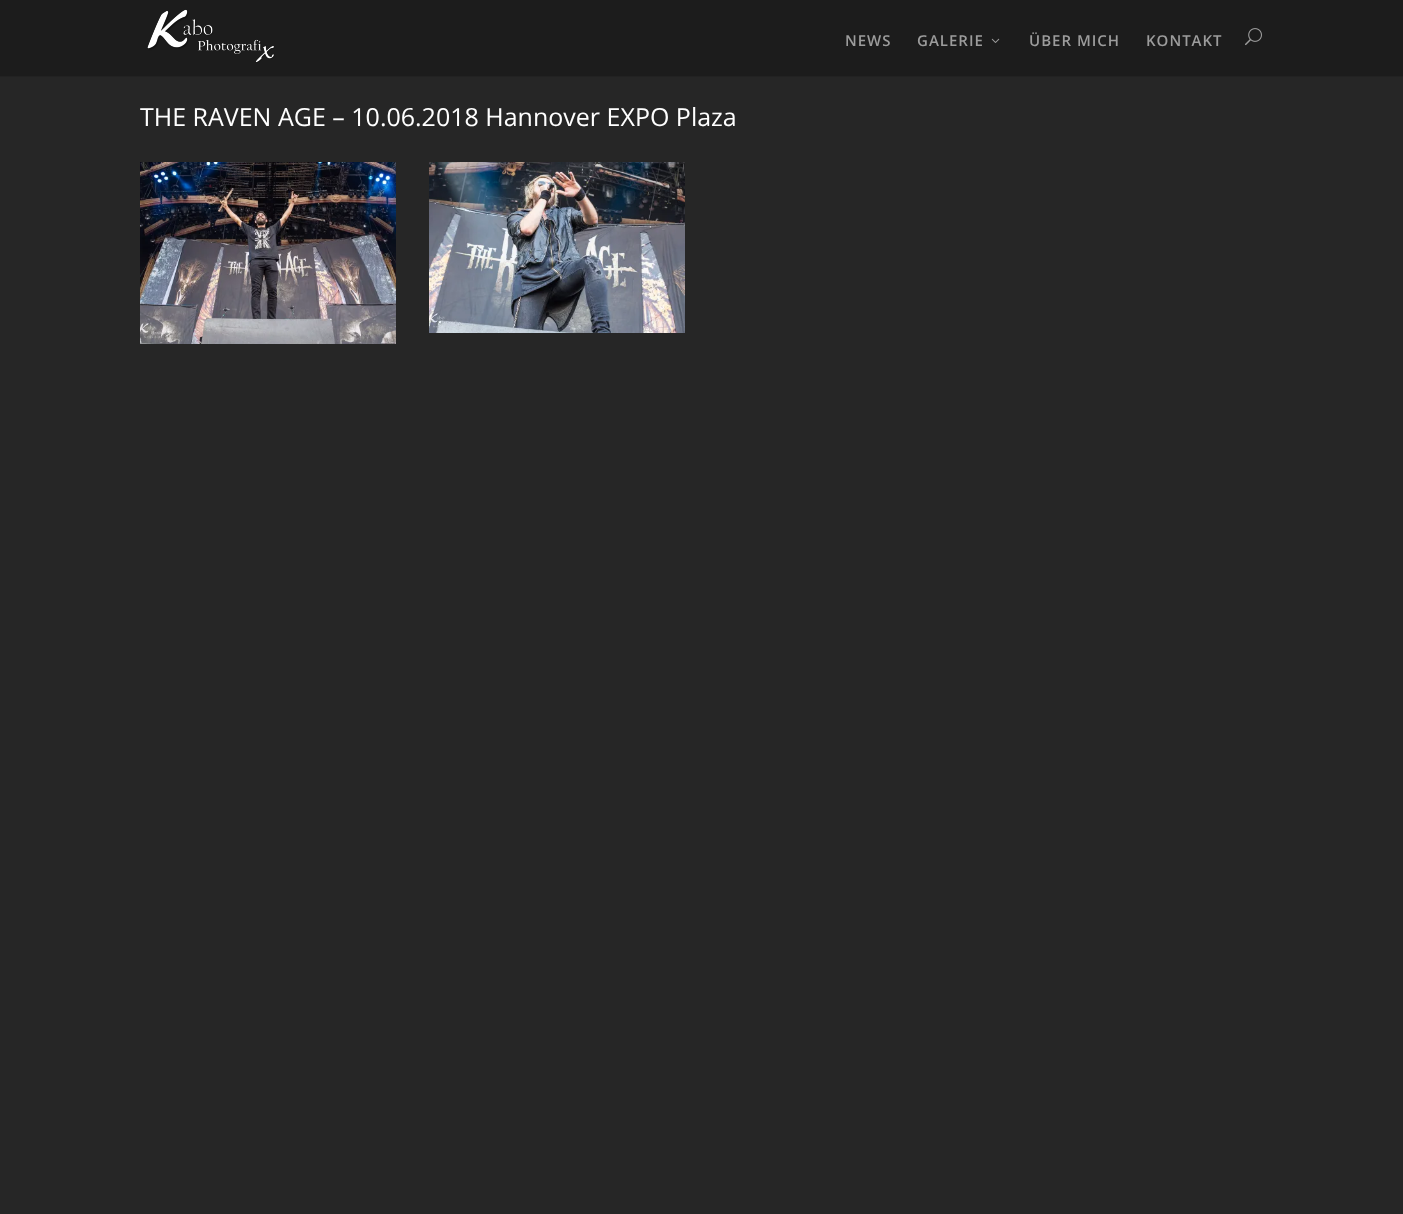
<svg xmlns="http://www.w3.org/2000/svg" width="1403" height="1214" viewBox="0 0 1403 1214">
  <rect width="100%" height="100%" fill="rgb(38,38,38)"/>
  <rect x="0" y="76" width="1403" height="1" fill="rgb(34,34,34)"/>
  <rect x="0" y="0" width="1403" height="76" fill="rgb(28,28,28)"/>
  <image x="147" y="9" width="128" height="54" href="pic1.png"/>
  <g font-family="Open Sans" font-size="15" font-weight="600" letter-spacing="1" fill="rgb(156,156,156)">
    <text x="845" y="46">NEWS</text>
    <text x="917" y="46">GALERIE</text>
  </g>
  <image x="991" y="38" width="9" height="5" href="pic2.png"/>
  <g font-family="Open Sans" font-size="15" font-weight="600" letter-spacing="1" fill="rgb(156,156,156)">
    <text x="1029" y="46">ÜBER MICH</text>
    <text x="1146" y="46">KONTAKT</text>
  </g>
  <image x="1245" y="28" width="17" height="18" href="pic3.png"/>
  <text x="140" y="126" font-family="Open Sans" font-size="25" fill="rgb(255,255,255)">THE RAVEN AGE – 10.06.2018 Hannover EXPO Plaza</text>
  <image x="140" y="162" width="256" height="182" href="pic4.png"/>
  <image x="429" y="162" width="256" height="171" href="pic5.png"/>
</svg>
